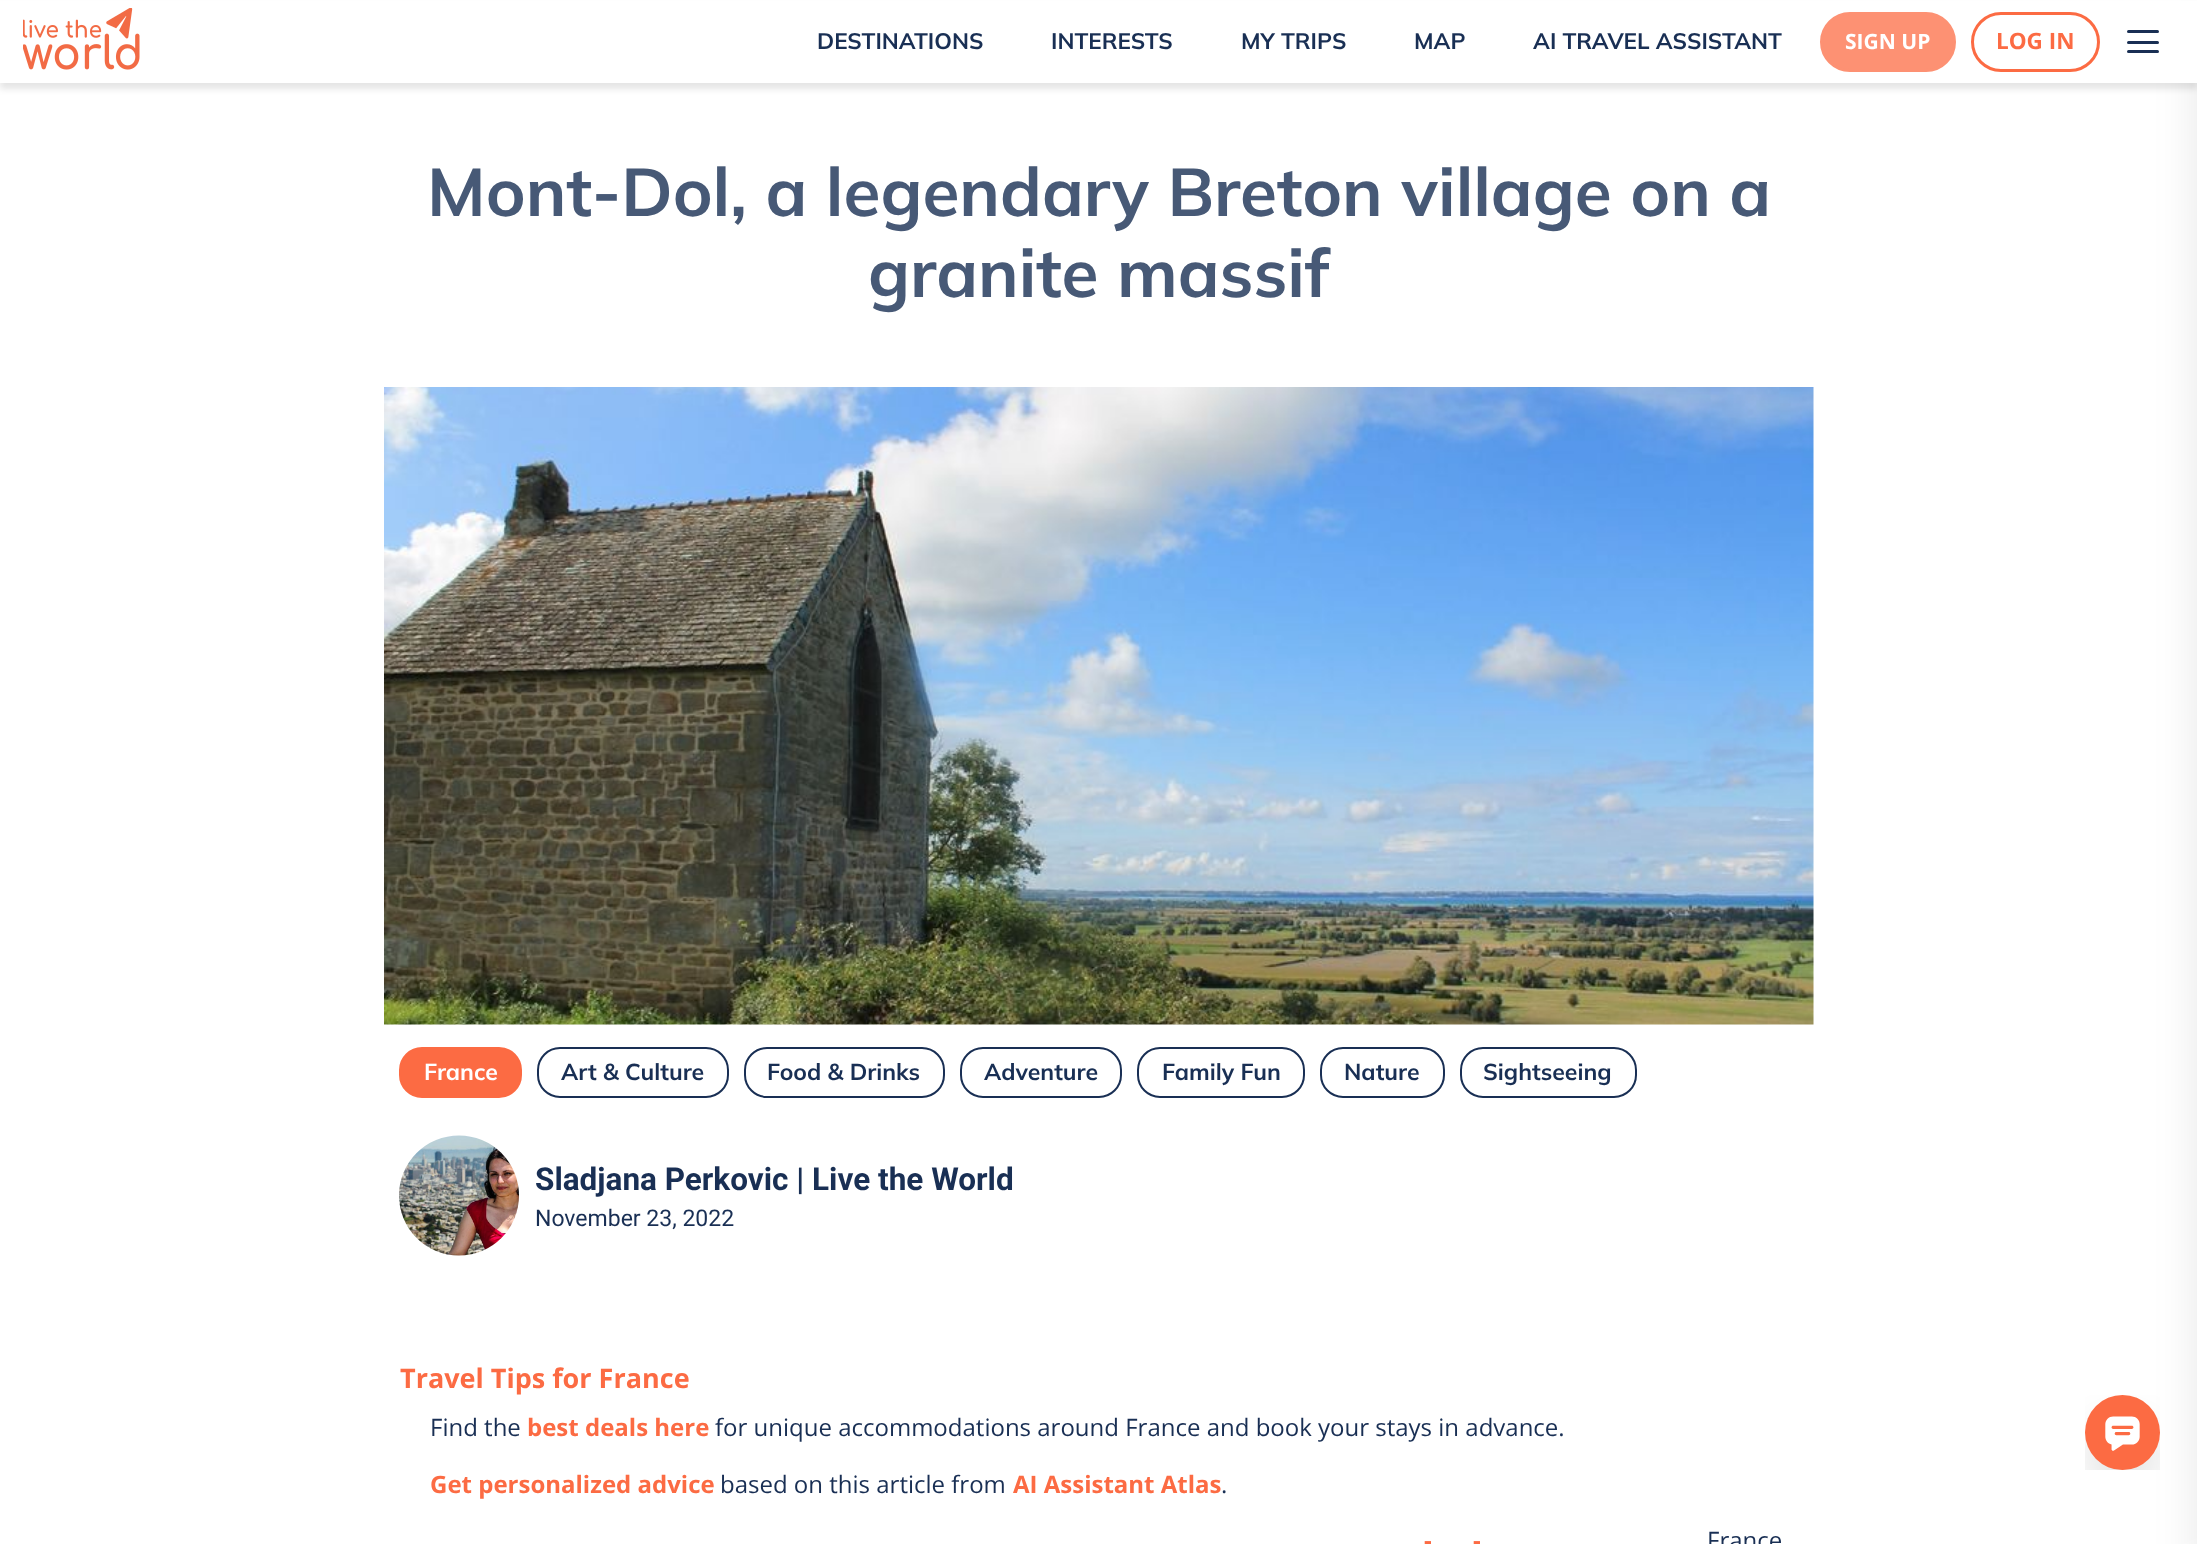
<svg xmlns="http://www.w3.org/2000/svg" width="2197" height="1544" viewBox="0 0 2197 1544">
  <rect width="100%" height="100%" fill="rgb(255,255,255)"/>
  <rect x="0" y="6" width="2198" height="83" fill="rgba(0,0,0,0.1)" filter="blur(3px)"/>
  <rect x="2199" y="30" width="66" height="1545" fill="rgba(0,0,0,0.1)" filter="blur(22.5px)"/>
  <rect x="0" y="1" width="2197" height="82" fill="rgb(255,255,255)"/>
  <image x="23" y="8" width="117" height="62" href="pic1.png"/>
  <g font-family="Mulish" font-size="22.5" font-weight="bold" fill="rgb(25,47,84)">
    <text x="817" y="49">DESTINATIONS</text>
    <text x="1051" y="49">INTERESTS</text>
    <text x="1241" y="49">MY TRIPS</text>
    <text x="1414" y="49">MAP</text>
    <text x="1533" y="49">AI TRAVEL ASSISTANT</text>
  </g>
  <rect x="1821.5" y="13.5" width="133" height="57" rx="28.5" fill="rgb(253,145,115)" stroke="rgb(253,145,115)" stroke-width="3"/>
  <text x="1845" y="49" font-family="Open Sans" font-size="21" font-weight="bold" fill="rgb(255,255,255)">SIGN UP</text>
  <rect x="1972.5" y="13.5" width="126" height="57" rx="28.5" fill="none" stroke="rgb(252,107,67)" stroke-width="3"/>
  <text x="1996" y="49" font-family="Open Sans" font-size="22.5" font-weight="bold" fill="rgb(252,107,67)">LOG IN</text>
  <rect x="2127" y="30" width="32" height="3" rx="1.5" fill="rgb(25,47,84)"/>
  <rect x="2127" y="41" width="32" height="3" rx="1.5" fill="rgb(25,47,84)"/>
  <rect x="2127" y="50" width="32" height="3" rx="1.5" fill="rgb(25,47,84)"/>
  <g font-family="Mulish" font-size="67.5" font-weight="bold" fill="rgb(71,89,118)">
    <text x="427" y="216">Mont-Dol, a legendary Breton village on a</text>
    <text x="868" y="297">granite massif</text>
  </g>
  <image x="384" y="387" width="1430" height="638" href="pic2.png"/>
  <rect x="400" y="1048" width="121" height="49" rx="22" fill="rgb(252,107,67)" stroke="rgb(252,107,67)" stroke-width="2"/>
  <text x="424" y="1080" font-family="Mulish" font-size="23" font-weight="bold" fill="rgb(255,255,255)">France</text>
  <rect x="538" y="1048" width="190" height="49" rx="22" fill="none" stroke="rgb(25,47,84)" stroke-width="2"/>
  <text x="561" y="1080" font-family="Mulish" font-size="23" font-weight="bold" fill="rgb(25,47,84)">Art &amp; Culture</text>
  <rect x="745" y="1048" width="199" height="49" rx="22" fill="none" stroke="rgb(25,47,84)" stroke-width="2"/>
  <text x="767" y="1080" font-family="Mulish" font-size="23" font-weight="bold" fill="rgb(25,47,84)">Food &amp; Drinks</text>
  <rect x="961" y="1048" width="160" height="49" rx="22" fill="none" stroke="rgb(25,47,84)" stroke-width="2"/>
  <text x="984" y="1080" font-family="Mulish" font-size="23" font-weight="bold" fill="rgb(25,47,84)">Adventure</text>
  <rect x="1138" y="1048" width="166" height="49" rx="22" fill="none" stroke="rgb(25,47,84)" stroke-width="2"/>
  <text x="1162" y="1080" font-family="Mulish" font-size="23" font-weight="bold" fill="rgb(25,47,84)">Family Fun</text>
  <rect x="1321" y="1048" width="123" height="49" rx="22" fill="none" stroke="rgb(25,47,84)" stroke-width="2"/>
  <text x="1344" y="1080" font-family="Mulish" font-size="23" font-weight="bold" fill="rgb(25,47,84)">Nature</text>
  <rect x="1461" y="1048" width="175" height="49" rx="22" fill="none" stroke="rgb(25,47,84)" stroke-width="2"/>
  <text x="1483" y="1080" font-family="Mulish" font-size="23" font-weight="bold" fill="rgb(25,47,84)">Sightseeing</text>
  <image x="399" y="1135" width="120" height="121" href="pic3.png"/>
  <text x="535" y="1190" font-family="Roboto" font-size="31.5" font-weight="bold" fill="rgb(25,47,84)">Sladjana Perkovic | Live the World</text>
  <text x="535" y="1226" font-family="Roboto" font-size="23" fill="rgb(25,47,84)">November 23, 2022</text>
  <text x="400" y="1388" font-family="Open Sans" font-size="27" font-weight="bold" fill="rgb(252,107,67)">Travel Tips for France</text>
  <text x="430" y="1436" font-family="Open Sans" font-size="24" fill="rgb(25,47,84)">Find the</text>
  <text x="527" y="1436" font-family="Open Sans" font-size="24" font-weight="bold" fill="rgb(252,107,67)">best deals here</text>
  <text x="715" y="1436" font-family="Open Sans" font-size="24" fill="rgb(25,47,84)">for unique accommodations around France and book your stays in advance.</text>
  <text x="430" y="1493" font-family="Open Sans" font-size="24" font-weight="bold" fill="rgb(252,107,67)">Get personalized advice</text>
  <text x="720" y="1493" font-family="Open Sans" font-size="24" fill="rgb(25,47,84)">based on this article from</text>
  <text x="1013" y="1493" font-family="Open Sans" font-size="24" font-weight="bold" fill="rgb(252,107,67)">AI Assistant Atlas</text>
  <text x="1221" y="1493" font-family="Open Sans" font-size="24" fill="rgb(25,47,84)">.</text>
  <g font-family="Open Sans" font-size="24" font-weight="bold" fill="rgb(252,107,67)">
    <text x="1424" y="1549">-</text>
    <text x="1473" y="1549">-</text>
  </g>
  <text x="1707" y="1549" font-family="Open Sans" font-size="24" fill="rgb(25,47,84)">France</text>
  <image x="2085" y="1395" width="75" height="75" href="pic4.png"/>
</svg>
